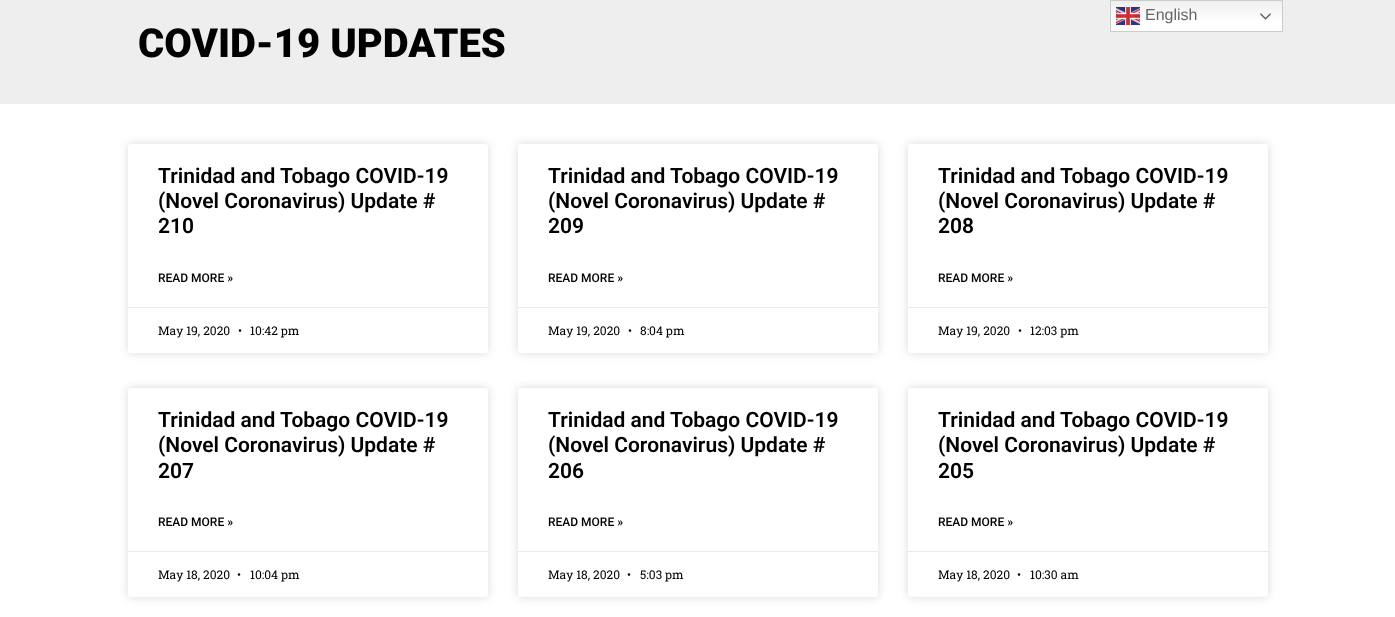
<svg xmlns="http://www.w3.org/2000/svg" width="1395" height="617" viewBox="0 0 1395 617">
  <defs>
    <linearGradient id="g1" gradientUnits="userSpaceOnUse" x1="1197" y1="0" x2="1197" y2="32"><stop offset="0" stop-color="rgb(239,239,239)"/><stop offset="0.7" stop-color="rgb(255,255,255)"/></linearGradient>
  </defs>
  <rect width="100%" height="100%" fill="rgb(255,255,255)"/>
  <rect x="0" y="0" width="1395" height="104" fill="rgb(238,238,238)"/>
  <rect x="1111" y="2" width="171" height="29" fill="url(#g1)"/>
  <rect x="1110.5" y="0.5" width="172" height="31" fill="none" stroke="rgb(204,204,204)"/>
  <image x="1116" y="7" width="24" height="18" href="pic1.png"/>
  <text x="1145" y="20" font-family="Liberation Sans" font-size="16" fill="rgb(102,102,102)">English</text>
  <image x="1260" y="13" width="11" height="7" href="pic2.png"/>
  <text x="138" y="57" font-family="Roboto" font-size="40" font-weight="900" fill="rgb(0,0,0)">COVID-19 UPDATES</text>
  <rect x="128" y="144" width="360" height="209" rx="3" fill="rgba(0,0,0,0.15)" filter="blur(5px)"/>
  <rect x="128" y="144" width="360" height="209" rx="3" fill="rgb(255,255,255)"/>
  <g font-family="Roboto" font-size="21" font-weight="600" fill="rgb(0,0,0)">
    <text>
      <tspan x="158" y="183">Trinidad and Tobago COVID-19</tspan>
      <tspan x="158" y="208">(Novel Coronavirus) Update #</tspan>
      <tspan x="158" y="233">210</tspan>
    </text>
  </g>
  <text x="158" y="282" font-family="Roboto" font-size="12" font-weight="500" fill="rgb(0,0,0)">READ MORE »</text>
  <rect x="128" y="307" width="360" height="1" fill="rgb(234,234,234)"/>
  <g font-family="Roboto Slab" font-size="12" fill="rgb(0,0,0)">
    <text x="158" y="335">May 19, 2020</text>
    <text x="238" y="335">•</text>
    <text x="250" y="335">10:42 pm</text>
  </g>
  <rect x="518" y="144" width="360" height="209" rx="3" fill="rgba(0,0,0,0.15)" filter="blur(5px)"/>
  <rect x="518" y="144" width="360" height="209" rx="3" fill="rgb(255,255,255)"/>
  <g font-family="Roboto" font-size="21" font-weight="600" fill="rgb(0,0,0)">
    <text>
      <tspan x="548" y="183">Trinidad and Tobago COVID-19</tspan>
      <tspan x="548" y="208">(Novel Coronavirus) Update #</tspan>
      <tspan x="548" y="233">209</tspan>
    </text>
  </g>
  <text x="548" y="282" font-family="Roboto" font-size="12" font-weight="500" fill="rgb(0,0,0)">READ MORE »</text>
  <rect x="518" y="307" width="360" height="1" fill="rgb(234,234,234)"/>
  <g font-family="Roboto Slab" font-size="12" fill="rgb(0,0,0)">
    <text x="548" y="335">May 19, 2020</text>
    <text x="628" y="335">•</text>
    <text x="640" y="335">8:04 pm</text>
  </g>
  <rect x="908" y="144" width="360" height="209" rx="3" fill="rgba(0,0,0,0.15)" filter="blur(5px)"/>
  <rect x="908" y="144" width="360" height="209" rx="3" fill="rgb(255,255,255)"/>
  <g font-family="Roboto" font-size="21" font-weight="600" fill="rgb(0,0,0)">
    <text>
      <tspan x="938" y="183">Trinidad and Tobago COVID-19</tspan>
      <tspan x="938" y="208">(Novel Coronavirus) Update #</tspan>
      <tspan x="938" y="233">208</tspan>
    </text>
  </g>
  <text x="938" y="282" font-family="Roboto" font-size="12" font-weight="500" fill="rgb(0,0,0)">READ MORE »</text>
  <rect x="908" y="307" width="360" height="1" fill="rgb(234,234,234)"/>
  <g font-family="Roboto Slab" font-size="12" fill="rgb(0,0,0)">
    <text x="938" y="335">May 19, 2020</text>
    <text x="1018" y="335">•</text>
    <text x="1030" y="335">12:03 pm</text>
  </g>
  <rect x="128" y="388" width="360" height="209" rx="3" fill="rgba(0,0,0,0.15)" filter="blur(5px)"/>
  <rect x="128" y="388" width="360" height="209" rx="3" fill="rgb(255,255,255)"/>
  <g font-family="Roboto" font-size="21" font-weight="600" fill="rgb(0,0,0)">
    <text>
      <tspan x="158" y="427">Trinidad and Tobago COVID-19</tspan>
      <tspan x="158" y="452">(Novel Coronavirus) Update #</tspan>
      <tspan x="158" y="478">207</tspan>
    </text>
  </g>
  <text x="158" y="526" font-family="Roboto" font-size="12" font-weight="500" fill="rgb(0,0,0)">READ MORE »</text>
  <rect x="128" y="551" width="360" height="1" fill="rgb(234,234,234)"/>
  <g font-family="Roboto Slab" font-size="12" fill="rgb(0,0,0)">
    <text x="158" y="579">May 18, 2020</text>
    <text x="237" y="579">•</text>
    <text x="250" y="579">10:04 pm</text>
  </g>
  <rect x="518" y="388" width="360" height="209" rx="3" fill="rgba(0,0,0,0.15)" filter="blur(5px)"/>
  <rect x="518" y="388" width="360" height="209" rx="3" fill="rgb(255,255,255)"/>
  <g font-family="Roboto" font-size="21" font-weight="600" fill="rgb(0,0,0)">
    <text>
      <tspan x="548" y="427">Trinidad and Tobago COVID-19</tspan>
      <tspan x="548" y="452">(Novel Coronavirus) Update #</tspan>
      <tspan x="548" y="478">206</tspan>
    </text>
  </g>
  <text x="548" y="526" font-family="Roboto" font-size="12" font-weight="500" fill="rgb(0,0,0)">READ MORE »</text>
  <rect x="518" y="551" width="360" height="1" fill="rgb(234,234,234)"/>
  <g font-family="Roboto Slab" font-size="12" fill="rgb(0,0,0)">
    <text x="548" y="579">May 18, 2020</text>
    <text x="627" y="579">•</text>
    <text x="640" y="579">5:03 pm</text>
  </g>
  <rect x="908" y="388" width="360" height="209" rx="3" fill="rgba(0,0,0,0.15)" filter="blur(5px)"/>
  <rect x="908" y="388" width="360" height="209" rx="3" fill="rgb(255,255,255)"/>
  <g font-family="Roboto" font-size="21" font-weight="600" fill="rgb(0,0,0)">
    <text>
      <tspan x="938" y="427">Trinidad and Tobago COVID-19</tspan>
      <tspan x="938" y="452">(Novel Coronavirus) Update #</tspan>
      <tspan x="938" y="478">205</tspan>
    </text>
  </g>
  <text x="938" y="526" font-family="Roboto" font-size="12" font-weight="500" fill="rgb(0,0,0)">READ MORE »</text>
  <rect x="908" y="551" width="360" height="1" fill="rgb(234,234,234)"/>
  <g font-family="Roboto Slab" font-size="12" fill="rgb(0,0,0)">
    <text x="938" y="579">May 18, 2020</text>
    <text x="1017" y="579">•</text>
    <text x="1030" y="579">10:30 am</text>
  </g>
</svg>
